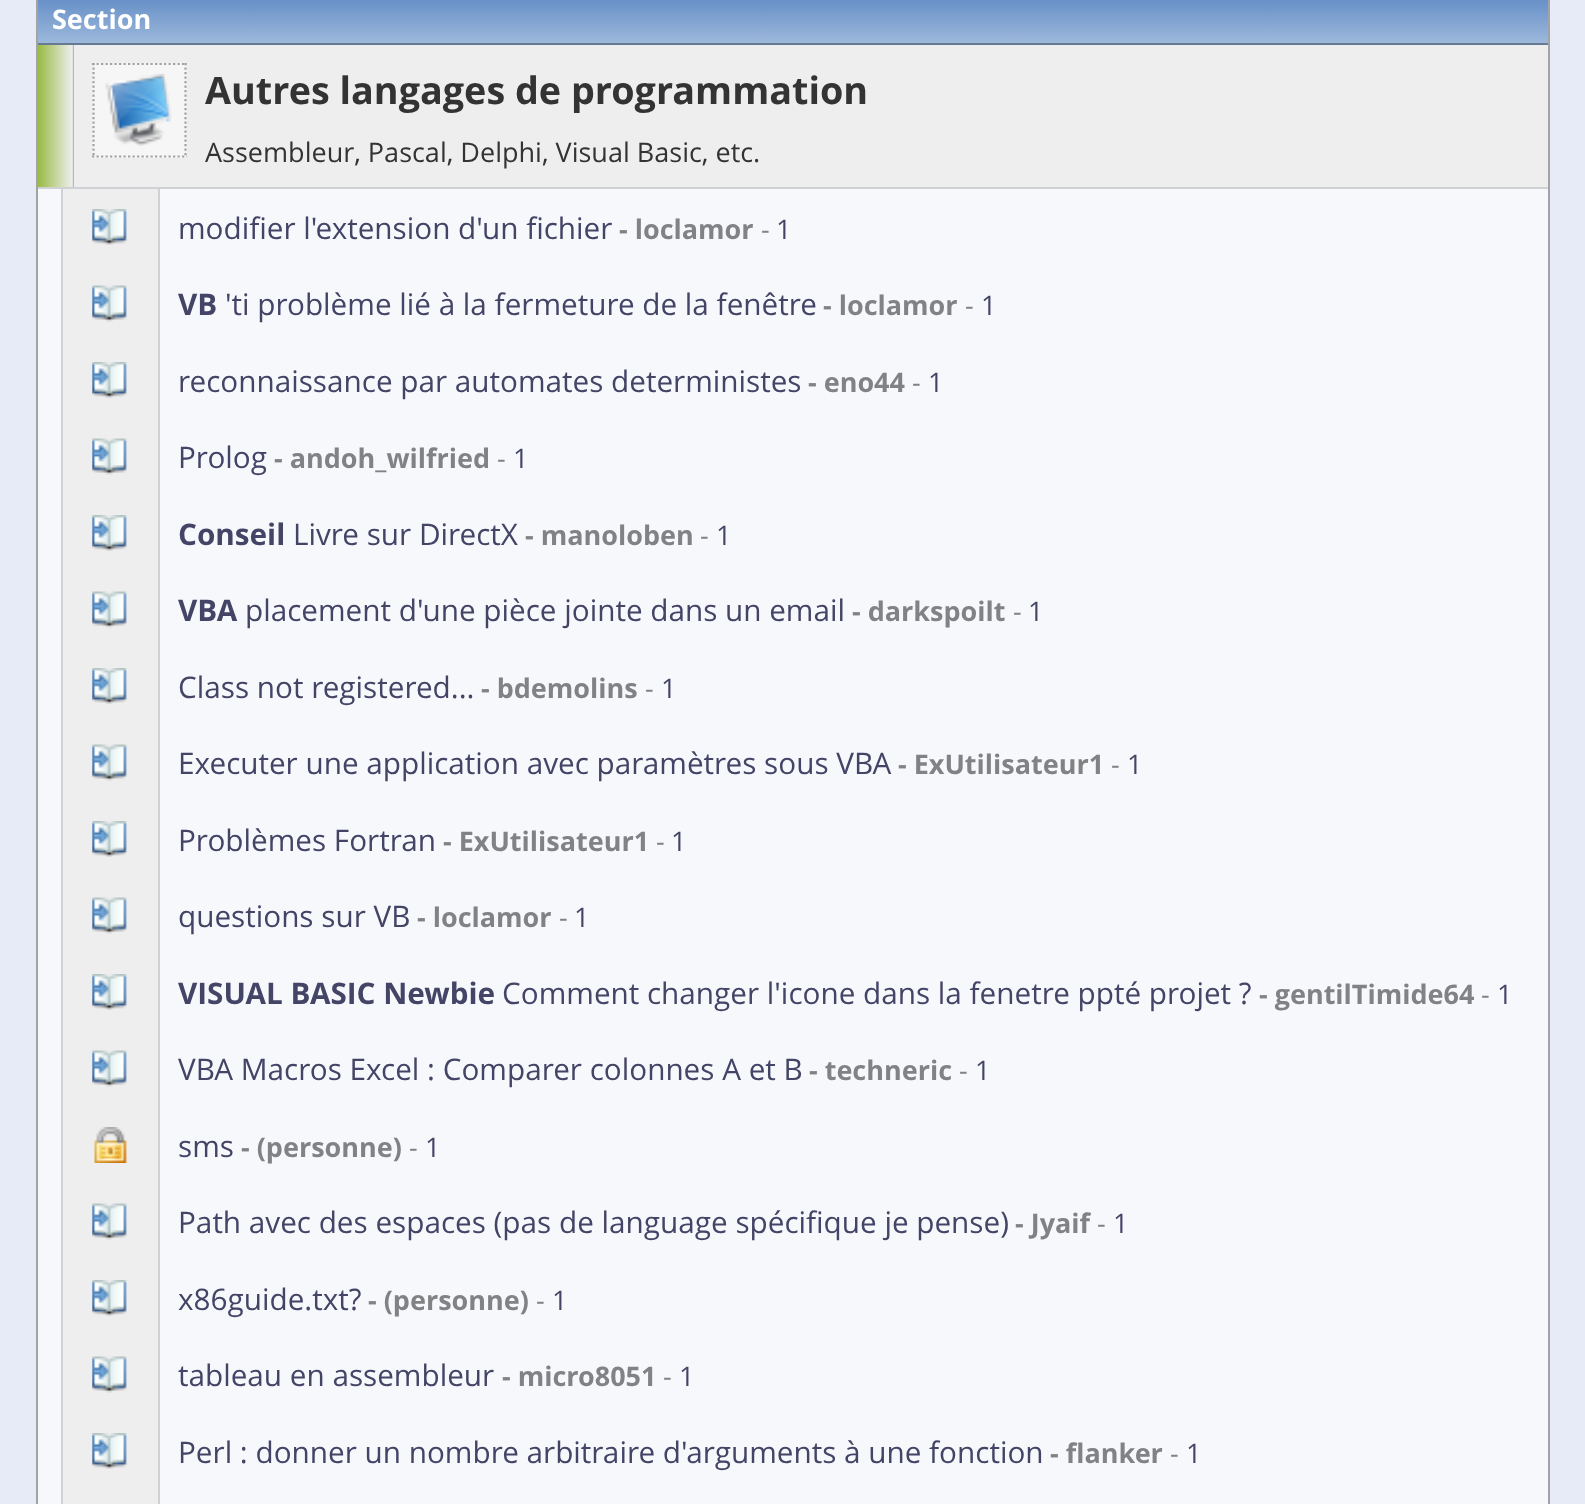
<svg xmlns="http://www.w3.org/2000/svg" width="1585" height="1504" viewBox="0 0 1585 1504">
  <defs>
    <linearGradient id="g1" gradientUnits="userSpaceOnUse" x1="793" y1="-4.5" x2="793" y2="43"><stop offset="0" stop-color="rgb(213,224,240)"/><stop offset="0.05" stop-color="rgb(101,143,199)"/><stop offset="1" stop-color="rgb(157,184,219)"/></linearGradient>
    <linearGradient id="g2" gradientUnits="userSpaceOnUse" x1="38" y1="116" x2="74" y2="116"><stop offset="0" stop-color="rgb(153,187,68)"/><stop offset="0.95" stop-color="rgb(238,238,238)"/><stop offset="1" stop-color="rgb(163,163,163)"/></linearGradient>
  </defs>
  <rect width="100%" height="100%" fill="rgb(231,235,247)"/>
  <rect x="63" y="45" width="1485" height="1459" fill="rgb(238,238,238)"/>
  <rect x="1548" y="0" width="2" height="1504" fill="rgb(163,163,163)"/>
  <rect x="36" y="0" width="2" height="1504" fill="rgb(163,163,163)"/>
  <rect x="38" y="0" width="1510" height="43" fill="url(#g1)"/>
  <rect x="38" y="43" width="1510" height="2" fill="rgb(103,122,148)"/>
  <text x="52" y="29" font-family="Open Sans" font-size="27" font-weight="bold" fill="rgb(255,255,255)">Section</text>
  <rect x="38" y="45" width="36" height="142" fill="url(#g2)"/>
  <rect x="92" y="63" width="95" height="95" fill="rgb(246,246,246)"/>
  <path d="M92 64H187" fill="none" stroke="rgb(163,163,163)" stroke-width="2.2" stroke-dasharray="2.25 2.25"/>
  <path d="M185.5 63V157.5" fill="none" stroke="rgb(163,163,163)" stroke-width="2.2" stroke-dasharray="2.25 2.25"/>
  <path d="M92 156.5H187" fill="none" stroke="rgb(163,163,163)" stroke-width="2.2" stroke-dasharray="2.25 2.25"/>
  <path d="M93.5 63V157.5" fill="none" stroke="rgb(163,163,163)" stroke-width="2.2" stroke-dasharray="2.25 2.25"/>
  <image x="105" y="74" width="67" height="72" href="pic1.png"/>
  <text x="205" y="104" font-family="Open Sans" font-size="37.75" font-weight="bold" fill="rgb(51,51,51)">Autres langages de programmation</text>
  <text x="205" y="162" font-family="Open Sans" font-size="27" fill="rgb(51,51,51)">Assembleur, Pascal, Delphi, Visual Basic, etc.</text>
  <rect x="38" y="187" width="1510" height="2" fill="rgb(208,209,212)"/>
  <rect x="158" y="187" width="2" height="1317" fill="rgb(208,209,212)"/>
  <rect x="61" y="187" width="2" height="1317" fill="rgb(208,209,212)"/>
  <rect x="38" y="189" width="23" height="1315" fill="rgb(247,248,252)"/>
  <image x="92" y="209" width="35" height="36" href="pic2.png"/>
  <rect x="160" y="189" width="1388" height="1315" fill="rgb(247,248,252)"/>
  <text x="178" y="239" font-family="Open Sans" font-size="29.7" fill="rgb(68,68,102)">modifier l'extension d'un fichier</text>
  <text x="619" y="239" font-family="Open Sans" font-size="27" font-weight="bold" fill="rgb(129,130,131)">- loclamor</text>
  <text x="761" y="239" font-family="Open Sans" font-size="27" fill="rgb(129,130,131)">-</text>
  <text x="776" y="239" font-family="Open Sans" font-size="27" fill="rgb(68,68,102)">1</text>
  <image x="92" y="285" width="35" height="37" href="pic3.png"/>
  <text x="178" y="315" font-family="Open Sans" font-size="29.7" font-weight="bold" fill="rgb(68,68,102)">VB</text>
  <text x="225" y="315" font-family="Open Sans" font-size="29.7" fill="rgb(68,68,102)">'ti problème lié à la fermeture de la fenêtre</text>
  <text x="823" y="315" font-family="Open Sans" font-size="27" font-weight="bold" fill="rgb(129,130,131)">- loclamor</text>
  <text x="965" y="315" font-family="Open Sans" font-size="27" fill="rgb(129,130,131)">-</text>
  <text x="981" y="315" font-family="Open Sans" font-size="27" fill="rgb(68,68,102)">1</text>
  <image x="92" y="362" width="35" height="36" href="pic2.png"/>
  <text x="178" y="392" font-family="Open Sans" font-size="29.7" fill="rgb(68,68,102)">reconnaissance par automates deterministes</text>
  <text x="808" y="392" font-family="Open Sans" font-size="27" font-weight="bold" fill="rgb(129,130,131)">- eno44</text>
  <text x="912" y="392" font-family="Open Sans" font-size="27" fill="rgb(129,130,131)">-</text>
  <text x="928" y="392" font-family="Open Sans" font-size="27" fill="rgb(68,68,102)">1</text>
  <image x="92" y="438" width="35" height="37" href="pic4.png"/>
  <text x="178" y="468" font-family="Open Sans" font-size="29.7" fill="rgb(68,68,102)">Prolog</text>
  <text x="274" y="468" font-family="Open Sans" font-size="27" font-weight="bold" fill="rgb(129,130,131)">- andoh_wilfried</text>
  <text x="497" y="468" font-family="Open Sans" font-size="27" fill="rgb(129,130,131)">-</text>
  <text x="513" y="468" font-family="Open Sans" font-size="27" fill="rgb(68,68,102)">1</text>
  <image x="92" y="515" width="35" height="36" href="pic2.png"/>
  <text x="178" y="545" font-family="Open Sans" font-size="29.7" font-weight="bold" fill="rgb(68,68,102)">Conseil</text>
  <text x="293" y="545" font-family="Open Sans" font-size="29.7" fill="rgb(68,68,102)">Livre sur DirectX</text>
  <text x="525" y="545" font-family="Open Sans" font-size="27" font-weight="bold" fill="rgb(129,130,131)">- manoloben</text>
  <text x="700" y="545" font-family="Open Sans" font-size="27" fill="rgb(129,130,131)">-</text>
  <text x="716" y="545" font-family="Open Sans" font-size="27" fill="rgb(68,68,102)">1</text>
  <image x="92" y="591" width="35" height="37" href="pic4.png"/>
  <text x="178" y="621" font-family="Open Sans" font-size="29.7" font-weight="bold" fill="rgb(68,68,102)">VBA</text>
  <text x="245" y="621" font-family="Open Sans" font-size="29.7" fill="rgb(68,68,102)">placement d'une pièce jointe dans un email</text>
  <text x="852" y="621" font-family="Open Sans" font-size="27" font-weight="bold" fill="rgb(129,130,131)">- darkspoilt</text>
  <text x="1013" y="621" font-family="Open Sans" font-size="27" fill="rgb(129,130,131)">-</text>
  <text x="1028" y="621" font-family="Open Sans" font-size="27" fill="rgb(68,68,102)">1</text>
  <image x="92" y="668" width="35" height="36" href="pic2.png"/>
  <text x="178" y="698" font-family="Open Sans" font-size="29.7" fill="rgb(68,68,102)">Class not registered...</text>
  <text x="481" y="698" font-family="Open Sans" font-size="27" font-weight="bold" fill="rgb(129,130,131)">- bdemolins</text>
  <text x="645" y="698" font-family="Open Sans" font-size="27" fill="rgb(129,130,131)">-</text>
  <text x="661" y="698" font-family="Open Sans" font-size="27" fill="rgb(68,68,102)">1</text>
  <image x="92" y="744" width="35" height="37" href="pic4.png"/>
  <text x="178" y="774" font-family="Open Sans" font-size="29.7" fill="rgb(68,68,102)">Executer une application avec paramètres sous VBA</text>
  <text x="898" y="774" font-family="Open Sans" font-size="27" font-weight="bold" fill="rgb(129,130,131)">- ExUtilisateur1</text>
  <text x="1111" y="774" font-family="Open Sans" font-size="27" fill="rgb(129,130,131)">-</text>
  <text x="1127" y="774" font-family="Open Sans" font-size="27" fill="rgb(68,68,102)">1</text>
  <image x="92" y="821" width="35" height="36" href="pic2.png"/>
  <text x="178" y="851" font-family="Open Sans" font-size="29.7" fill="rgb(68,68,102)">Problèmes Fortran</text>
  <text x="443" y="851" font-family="Open Sans" font-size="27" font-weight="bold" fill="rgb(129,130,131)">- ExUtilisateur1</text>
  <text x="656" y="851" font-family="Open Sans" font-size="27" fill="rgb(129,130,131)">-</text>
  <text x="671" y="851" font-family="Open Sans" font-size="27" fill="rgb(68,68,102)">1</text>
  <image x="92" y="897" width="35" height="37" href="pic4.png"/>
  <text x="178" y="927" font-family="Open Sans" font-size="29.7" fill="rgb(68,68,102)">questions sur VB</text>
  <text x="417" y="927" font-family="Open Sans" font-size="27" font-weight="bold" fill="rgb(129,130,131)">- loclamor</text>
  <text x="559" y="927" font-family="Open Sans" font-size="27" fill="rgb(129,130,131)">-</text>
  <text x="574" y="927" font-family="Open Sans" font-size="27" fill="rgb(68,68,102)">1</text>
  <image x="92" y="974" width="35" height="36" href="pic2.png"/>
  <text x="178" y="1004" font-family="Open Sans" font-size="29.7" font-weight="bold" fill="rgb(68,68,102)">VISUAL BASIC Newbie</text>
  <text x="502" y="1004" font-family="Open Sans" font-size="29.7" fill="rgb(68,68,102)">Comment changer l'icone dans la fenetre ppté projet ?</text>
  <text x="1259" y="1004" font-family="Open Sans" font-size="27" font-weight="bold" fill="rgb(129,130,131)">- gentilTimide64</text>
  <text x="1481" y="1004" font-family="Open Sans" font-size="27" fill="rgb(129,130,131)">-</text>
  <text x="1497" y="1004" font-family="Open Sans" font-size="27" fill="rgb(68,68,102)">1</text>
  <image x="92" y="1050" width="35" height="37" href="pic4.png"/>
  <text x="178" y="1080" font-family="Open Sans" font-size="29.7" fill="rgb(68,68,102)">VBA Macros Excel : Comparer colonnes A et B</text>
  <text x="809" y="1080" font-family="Open Sans" font-size="27" font-weight="bold" fill="rgb(129,130,131)">- techneric</text>
  <text x="959" y="1080" font-family="Open Sans" font-size="27" fill="rgb(129,130,131)">-</text>
  <text x="975" y="1080" font-family="Open Sans" font-size="27" fill="rgb(68,68,102)">1</text>
  <image x="94" y="1127" width="33" height="36" href="pic5.png"/>
  <text x="178" y="1157" font-family="Open Sans" font-size="29.7" fill="rgb(68,68,102)">sms</text>
  <text x="241" y="1157" font-family="Open Sans" font-size="27" font-weight="bold" fill="rgb(129,130,131)">- (personne)</text>
  <text x="409" y="1157" font-family="Open Sans" font-size="27" fill="rgb(129,130,131)">-</text>
  <text x="425" y="1157" font-family="Open Sans" font-size="27" fill="rgb(68,68,102)">1</text>
  <image x="92" y="1203" width="35" height="37" href="pic4.png"/>
  <text x="178" y="1233" font-family="Open Sans" font-size="29.7" fill="rgb(68,68,102)">Path avec des espaces (pas de language spécifique je pense)</text>
  <text x="1015" y="1233" font-family="Open Sans" font-size="27" font-weight="bold" fill="rgb(129,130,131)">- Jyaif</text>
  <text x="1097" y="1233" font-family="Open Sans" font-size="27" fill="rgb(129,130,131)">-</text>
  <text x="1113" y="1233" font-family="Open Sans" font-size="27" fill="rgb(68,68,102)">1</text>
  <image x="92" y="1280" width="35" height="36" href="pic2.png"/>
  <text x="178" y="1310" font-family="Open Sans" font-size="29.7" fill="rgb(68,68,102)">x86guide.txt?</text>
  <text x="368" y="1310" font-family="Open Sans" font-size="27" font-weight="bold" fill="rgb(129,130,131)">- (personne)</text>
  <text x="536" y="1310" font-family="Open Sans" font-size="27" fill="rgb(129,130,131)">-</text>
  <text x="552" y="1310" font-family="Open Sans" font-size="27" fill="rgb(68,68,102)">1</text>
  <image x="92" y="1356" width="35" height="37" href="pic6.png"/>
  <text x="178" y="1386" font-family="Open Sans" font-size="29.7" fill="rgb(68,68,102)">tableau en assembleur</text>
  <text x="502" y="1386" font-family="Open Sans" font-size="27" font-weight="bold" fill="rgb(129,130,131)">- micro8051</text>
  <text x="663" y="1386" font-family="Open Sans" font-size="27" fill="rgb(129,130,131)">-</text>
  <text x="679" y="1386" font-family="Open Sans" font-size="27" fill="rgb(68,68,102)">1</text>
  <image x="92" y="1433" width="35" height="36" href="pic2.png"/>
  <text x="178" y="1463" font-family="Open Sans" font-size="29.7" fill="rgb(68,68,102)">Perl : donner un nombre arbitraire d'arguments à une fonction</text>
  <text x="1050" y="1463" font-family="Open Sans" font-size="27" font-weight="bold" fill="rgb(129,130,131)">- flanker</text>
  <text x="1170" y="1463" font-family="Open Sans" font-size="27" fill="rgb(129,130,131)">-</text>
  <text x="1186" y="1463" font-family="Open Sans" font-size="27" fill="rgb(68,68,102)">1</text>
</svg>
